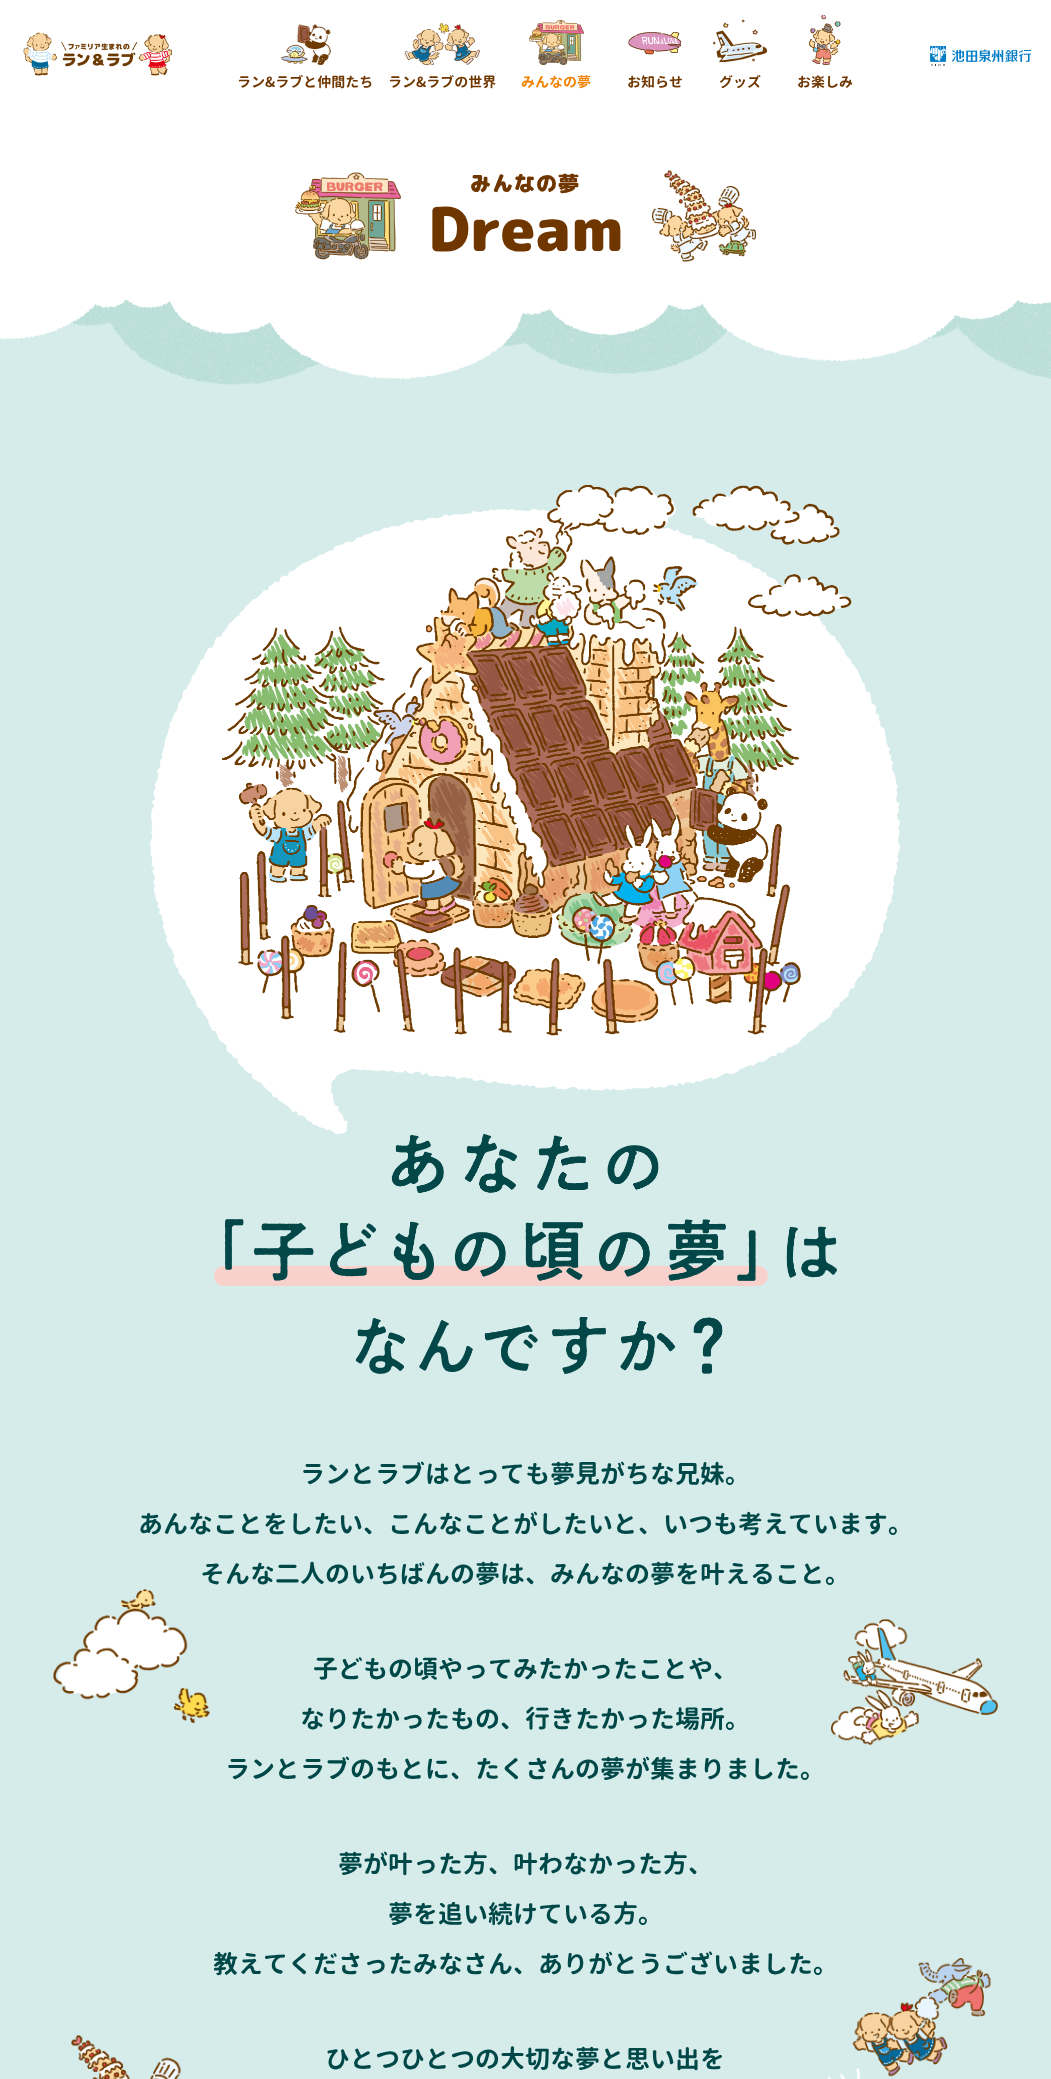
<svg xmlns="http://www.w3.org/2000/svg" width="1051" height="2079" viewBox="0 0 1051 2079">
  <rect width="100%" height="100%" fill="rgb(255,255,255)"/>
  <image x="23" y="32" width="149" height="44" href="pic1.png"/>
  <image x="930" y="46" width="101" height="20" href="pic2.png"/>
  <image x="280" y="24" width="51" height="41" href="pic3.png"/>
  <text x="237" y="87" font-family="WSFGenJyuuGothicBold" font-size="14" font-weight="bold" fill="rgb(112,54,0)">ラン&amp;ラブと仲間たち</text>
  <image x="404" y="23" width="76" height="42" href="pic4.png"/>
  <text x="388" y="87" font-family="WSFGenJyuuGothicBold" font-size="14" font-weight="bold" fill="rgb(112,54,0)">ラン&amp;ラブの世界</text>
  <image x="529" y="20" width="55" height="45" href="pic5.png"/>
  <text x="521" y="87" font-family="WSFGenJyuuGothicBold" font-size="14" font-weight="bold" fill="rgb(240,130,0)">みんなの夢</text>
  <image x="628" y="31" width="54" height="24" href="pic6.png"/>
  <text x="627" y="87" font-family="WSFGenJyuuGothicBold" font-size="14" font-weight="bold" fill="rgb(112,54,0)">お知らせ</text>
  <image x="713" y="19" width="55" height="44" href="pic7.png"/>
  <text x="719" y="87" font-family="WSFGenJyuuGothicBold" font-size="14" font-weight="bold" fill="rgb(112,54,0)">グッズ</text>
  <image x="809" y="15" width="32" height="50" href="pic8.png"/>
  <text x="797" y="87" font-family="WSFGenJyuuGothicBold" font-size="14" font-weight="bold" fill="rgb(112,54,0)">お楽しみ</text>
  <rect x="0" y="321" width="1051" height="1758" fill="rgb(213,236,235)"/>
  <image x="0" y="110" width="1051" height="275" href="pic9.png"/>
  <image x="295" y="172" width="106" height="88" href="pic10.png"/>
  <text x="470" y="191" font-family="'Rounded Mplus 1c'" font-size="21" font-weight="900" letter-spacing="1" fill="rgb(112,54,0)">みんなの夢</text>
  <image x="652" y="170" width="104" height="92" href="pic11.png"/>
  <text x="428" y="251" font-family="'Rounded Mplus 1c'" font-size="60" font-weight="900" fill="rgb(112,54,0)">Dream</text>
  <image x="150" y="485" width="750" height="649" href="pic12.png"/>
  <image x="214" y="1134" width="623" height="240" href="pic13.png"/>
  <g font-family="WSFGenJyuuGothicBold" font-size="25" font-weight="bold" fill="rgb(0,71,72)">
    <text x="300" y="1483">ランとラブはとっても夢見がちな兄妹。</text>
    <text x="138" y="1533">あんなことをしたい、こんなことがしたいと、いつも考えています。</text>
    <text x="200" y="1583">そんな二人のいちばんの夢は、みんなの夢を叶えること。</text>
  </g>
  <image x="53" y="1589" width="157" height="134" href="pic14.png"/>
  <g font-family="WSFGenJyuuGothicBold" font-size="25" font-weight="bold" fill="rgb(0,71,72)">
    <text x="313" y="1678">子どもの頃やってみたかったことや、</text>
    <text x="300" y="1728">なりたかったもの、行きたかった場所。</text>
    <text x="225" y="1778">ランとラブのもとに、たくさんの夢が集まりました。</text>
  </g>
  <image x="831" y="1619" width="167" height="126" href="pic15.png"/>
  <g font-family="WSFGenJyuuGothicBold" font-size="25" font-weight="bold" fill="rgb(0,71,72)">
    <text x="338" y="1873">夢が叶った方、叶わなかった方、</text>
    <text x="388" y="1923">夢を追い続けている方。</text>
    <text x="213" y="1973">教えてくださったみなさん、ありがとうございました。</text>
  </g>
  <image x="71" y="2035" width="110" height="44" href="pic16.png"/>
  <text x="325" y="2068" font-family="WSFGenJyuuGothicBold" font-size="25" font-weight="bold" fill="rgb(0,71,72)">ひとつひとつの大切な夢と思い出を</text>
  <image x="827" y="1958" width="164" height="121" href="pic17.png"/>
</svg>
